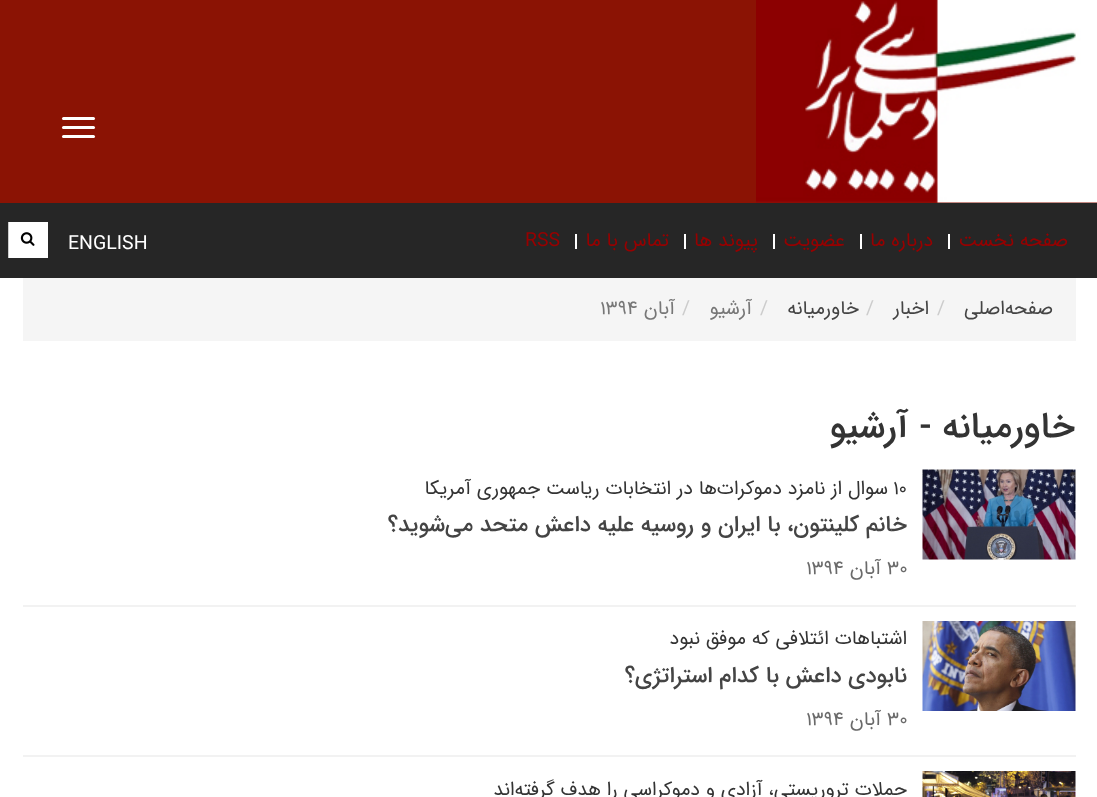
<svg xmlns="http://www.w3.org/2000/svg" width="1097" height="797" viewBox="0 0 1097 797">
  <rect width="100%" height="100%" fill="rgb(255,255,255)"/>
  <rect x="0" y="0" width="1097" height="203" fill="rgb(139,19,4)"/>
  <image x="756" y="0" width="341" height="203" href="pic1.png"/>
  <rect x="62" y="117" width="33" height="3" rx="1.5" fill="rgb(255,255,255)"/>
  <rect x="62" y="126" width="33" height="3" rx="1.5" fill="rgb(255,255,255)"/>
  <rect x="62" y="135" width="33" height="3" rx="1.5" fill="rgb(255,255,255)"/>
  <rect x="0" y="203" width="1097" height="75" fill="rgb(38,38,38)"/>
  <text x="1068" y="246" font-family="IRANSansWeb" font-size="19.5" direction="rtl" fill="rgb(151,0,0)">صفحه نخست</text>
  <rect x="948" y="234" width="2" height="15" fill="rgb(255,255,255)"/>
  <text x="933" y="246" font-family="IRANSansWeb" font-size="19.5" direction="rtl" fill="rgb(151,0,0)">درباره ما</text>
  <rect x="860" y="234" width="2" height="15" fill="rgb(255,255,255)"/>
  <text x="845" y="246" font-family="IRANSansWeb" font-size="19.5" direction="rtl" fill="rgb(151,0,0)">عضویت</text>
  <rect x="773" y="234" width="2" height="15" fill="rgb(255,255,255)"/>
  <text x="758" y="246" font-family="IRANSansWeb" font-size="19.5" direction="rtl" fill="rgb(151,0,0)">پیوند ها</text>
  <rect x="684" y="234" width="2" height="15" fill="rgb(255,255,255)"/>
  <text x="669" y="246" font-family="IRANSansWeb" font-size="19.5" direction="rtl" fill="rgb(151,0,0)">تماس با ما</text>
  <rect x="575" y="234" width="2" height="15" fill="rgb(255,255,255)"/>
  <text x="525" y="246" font-family="IRANSansWeb" font-size="19.5" fill="rgb(151,0,0)">RSS</text>
  <text x="68" y="249" font-family="IRANSansWeb" font-size="19.5" fill="rgb(255,255,255)">ENGLISH</text>
  <rect x="9" y="222" width="39" height="36" fill="rgb(255,255,255)"/>
  <image x="20" y="232" width="15" height="14" href="pic2.png"/>
  <rect x="8" y="222" width="1" height="36" fill="rgb(204,204,204)"/>
  <rect x="23" y="278" width="1053" height="63" fill="rgb(245,245,245)"/>
  <text x="1053" y="314" font-family="IRANSansWeb" font-size="19.5" direction="rtl" fill="rgb(68,68,68)">صفحه‌اصلی</text>
  <text x="937" y="314" font-family="IRANSansWeb" font-size="19.5" fill="rgb(204,204,204)">/</text>
  <text x="929" y="314" font-family="IRANSansWeb" font-size="19.5" direction="rtl" fill="rgb(68,68,68)">اخبار</text>
  <text x="866" y="314" font-family="IRANSansWeb" font-size="19.5" fill="rgb(204,204,204)">/</text>
  <text x="859" y="314" font-family="IRANSansWeb" font-size="19.5" direction="rtl" fill="rgb(68,68,68)">خاورمیانه</text>
  <text x="760" y="314" font-family="IRANSansWeb" font-size="19.5" fill="rgb(204,204,204)">/</text>
  <text x="752" y="314" font-family="IRANSansWeb" font-size="19.5" direction="rtl" fill="rgb(119,119,119)">آرشیو</text>
  <text x="682" y="314" font-family="IRANSansWeb" font-size="19.5" fill="rgb(204,204,204)">/</text>
  <text x="675" y="314" font-family="IRANSansWeb" font-size="19.5" direction="rtl" fill="rgb(119,119,119)">آبان</text>
  <text x="600" y="314" font-family="IRANSansWeb" font-size="19.5" fill="rgb(119,119,119)">۱۳۹۴</text>
  <text x="1075" y="437" font-family="IRANSansWeb" font-size="36" font-weight="500" direction="rtl" fill="rgb(51,51,51)">خاورمیانه - آرشیو</text>
  <rect x="23" y="605" width="1053" height="2" fill="rgb(242,242,242)"/>
  <image x="922" y="469" width="154" height="91" href="pic3.png"/>
  <text x="893" y="494" font-family="IRANSansWeb" font-size="19.5" fill="rgb(51,51,51)">۱۰</text>
  <text x="888" y="494" font-family="IRANSansWeb" font-size="19.5" direction="rtl" fill="rgb(51,51,51)">سوال از نامزد دموکرات‌ها در انتخابات ریاست جمهوری آمریکا</text>
  <text x="907" y="531" font-family="IRANSansWeb" font-size="22.5" font-weight="500" direction="rtl" fill="rgb(68,68,68)">خانم کلینتون، با ایران و روسیه علیه داعش متحد می‌شوید؟</text>
  <text x="887" y="574" font-family="IRANSansWeb" font-size="19.5" fill="rgb(106,106,106)">۳۰</text>
  <text x="881" y="574" font-family="IRANSansWeb" font-size="19.5" direction="rtl" fill="rgb(106,106,106)">آبان</text>
  <text x="806" y="574" font-family="IRANSansWeb" font-size="19.5" fill="rgb(106,106,106)">۱۳۹۴</text>
  <rect x="23" y="755" width="1053" height="2" fill="rgb(242,242,242)"/>
  <image x="922" y="621" width="154" height="90" href="pic4.png"/>
  <text x="907" y="644" font-family="IRANSansWeb" font-size="19.5" direction="rtl" fill="rgb(51,51,51)">اشتباهات ائتلافی که موفق نبود</text>
  <text x="907" y="682" font-family="IRANSansWeb" font-size="22.5" font-weight="500" direction="rtl" fill="rgb(68,68,68)">نابودی داعش با کدام استراتژی؟</text>
  <text x="887" y="725" font-family="IRANSansWeb" font-size="19.5" fill="rgb(106,106,106)">۳۰</text>
  <text x="881" y="725" font-family="IRANSansWeb" font-size="19.5" direction="rtl" fill="rgb(106,106,106)">آبان</text>
  <text x="806" y="725" font-family="IRANSansWeb" font-size="19.5" fill="rgb(106,106,106)">۱۳۹۴</text>
  <image x="922" y="771" width="154" height="26" href="pic5.png"/>
  <text x="907" y="795" font-family="IRANSansWeb" font-size="19.5" direction="rtl" fill="rgb(51,51,51)">حملات تروریستی، آزادی و دموکراسی را هدف گرفته‌اند</text>
</svg>
